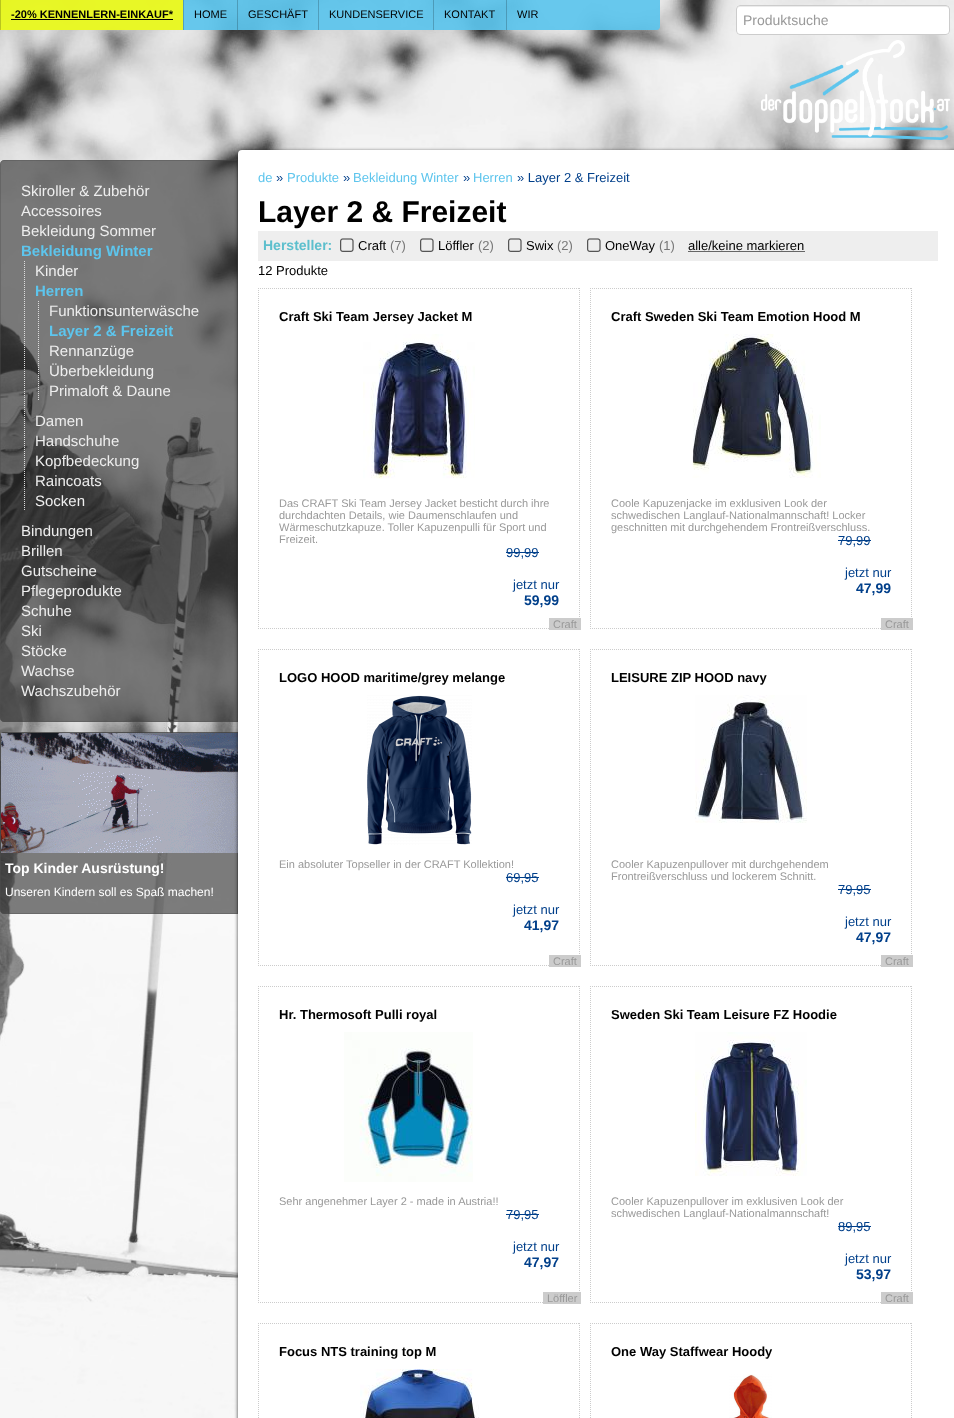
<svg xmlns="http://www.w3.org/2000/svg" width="954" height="1418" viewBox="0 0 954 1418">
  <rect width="100%" height="100%" fill="rgb(255,255,255)"/>
  <image x="0" y="0" width="954" height="1418" href="pic1.png"/>
  <path d="M0 0H660V27C660 28.5 658.5 30 657 30H3C1.5 30 0 28.5 0 27Z" fill="rgba(93,197,237,0.93)"/>
  <rect x="0" y="0" width="183" height="30" fill="rgba(255,255,4,0.85)"/>
  <rect x="0" y="0" width="1" height="30" fill="rgba(0,0,0,0.2)"/>
  <text x="11" y="18" font-family="Liberation Sans" font-size="11" font-weight="bold" fill="rgb(0,0,0)">-20% KENNENLERN-EINKAUF*</text>
  <rect x="11" y="19" width="162" height="1" fill="rgb(0,0,0)"/>
  <rect x="183" y="0" width="1" height="30" fill="rgba(0,0,0,0.2)"/>
  <text x="194" y="18" font-family="Liberation Sans" font-size="11" fill="rgb(0,0,0)">HOME</text>
  <rect x="237" y="0" width="1" height="30" fill="rgba(0,0,0,0.2)"/>
  <text x="248" y="18" font-family="Liberation Sans" font-size="11" fill="rgb(0,0,0)">GESCHÄFT</text>
  <rect x="318" y="0" width="1" height="30" fill="rgba(0,0,0,0.2)"/>
  <text x="329" y="18" font-family="Liberation Sans" font-size="11" fill="rgb(0,0,0)">KUNDENSERVICE</text>
  <rect x="433" y="0" width="1" height="30" fill="rgba(0,0,0,0.2)"/>
  <text x="444" y="18" font-family="Liberation Sans" font-size="11" fill="rgb(0,0,0)">KONTAKT</text>
  <rect x="506" y="0" width="1" height="30" fill="rgba(0,0,0,0.2)"/>
  <text x="517" y="18" font-family="Liberation Sans" font-size="11" fill="rgb(0,0,0)">WIR</text>
  <rect x="736" y="5" width="214" height="30" rx="4" fill="rgb(255,255,255)"/>
  <path d="M740 7H946C948 7 949 8 949 10V9C949 7 948 6 946 6H740C738 6 737 7 737 9V10C737 8 738 7 740 7Z" fill="rgb(236,236,236)"/>
  <rect x="736.5" y="5.5" width="213" height="29" rx="3.5" fill="none" stroke="rgb(204,204,204)"/>
  <text x="743" y="25" font-family="Liberation Sans" font-size="14" fill="rgb(153,153,153)">Produktsuche</text>
  <image x="761" y="40" width="189" height="100" href="pic2.png"/>
  <path d="M4 160H238V722H4C2 722 0 720 0 718V164C0 162 2 160 4 160Z" fill="rgba(40,40,40,0.6)"/>
  <path d="M4 160.5H237.5V721.5H4C2 721.5 .5 720 .5 718V164C.5 162 2 160.5 4 160.5Z" fill="none" stroke="rgba(80,80,80,0.4)"/>
  <g font-family="Liberation Sans" font-size="15" fill="rgb(238,238,238)">
    <text>
      <tspan x="21" y="196">Skiroller &amp; Zubehör</tspan>
      <tspan x="21" y="216">Accessoires</tspan>
      <tspan x="21" y="236">Bekleidung Sommer</tspan>
    </text>
  </g>
  <text x="21" y="256" font-family="Liberation Sans" font-size="15" font-weight="bold" fill="rgb(93,197,237)">Bekleidung Winter</text>
  <path d="M24.5 261V511" fill="none" stroke="rgb(221,221,221)" stroke-dasharray="1 1"/>
  <text x="35" y="276" font-family="Liberation Sans" font-size="15" fill="rgb(238,238,238)">Kinder</text>
  <text x="35" y="296" font-family="Liberation Sans" font-size="15" font-weight="bold" fill="rgb(93,197,237)">Herren</text>
  <path d="M38.5 301V401" fill="none" stroke="rgb(221,221,221)" stroke-dasharray="1 1"/>
  <text x="49" y="316" font-family="Liberation Sans" font-size="15" fill="rgb(238,238,238)">Funktionsunterwäsche</text>
  <text x="49" y="336" font-family="Liberation Sans" font-size="15" font-weight="bold" fill="rgb(93,197,237)">Layer 2 &amp; Freizeit</text>
  <g font-family="Liberation Sans" font-size="15" fill="rgb(238,238,238)">
    <text>
      <tspan x="49" y="356">Rennanzüge</tspan>
      <tspan x="49" y="376">Überbekleidung</tspan>
      <tspan x="49" y="396">Primaloft &amp; Daune</tspan>
    </text>
    <text>
      <tspan x="35" y="426">Damen</tspan>
      <tspan x="35" y="446">Handschuhe</tspan>
      <tspan x="35" y="466">Kopfbedeckung</tspan>
      <tspan x="35" y="486">Raincoats</tspan>
      <tspan x="35" y="506">Socken</tspan>
    </text>
    <text>
      <tspan x="21" y="536">Bindungen</tspan>
      <tspan x="21" y="556">Brillen</tspan>
      <tspan x="21" y="576">Gutscheine</tspan>
      <tspan x="21" y="596">Pflegeprodukte</tspan>
      <tspan x="21" y="616">Schuhe</tspan>
      <tspan x="21" y="636">Ski</tspan>
      <tspan x="21" y="656">Stöcke</tspan>
      <tspan x="21" y="676">Wachse</tspan>
      <tspan x="21" y="696">Wachszubehör</tspan>
    </text>
  </g>
  <path d="M4 732H238V914H4C2 914 0 912 0 910V736C0 734 2 732 4 732Z" fill="rgba(40,40,40,0.6)"/>
  <path d="M4 732.5H237.5V913.5H4C2 913.5 .5 912 .5 910V736C.5 734 2 732.5 4 732.5Z" fill="none" stroke="rgba(80,80,80,0.4)"/>
  <image x="1" y="733" width="237" height="120" href="pic3.png"/>
  <text x="5" y="873" font-family="Liberation Sans" font-size="14" font-weight="bold" fill="rgb(255,255,255)">Top Kinder Ausrüstung!</text>
  <text x="5" y="896" font-family="Liberation Sans" font-size="12" fill="rgb(255,255,255)">Unseren Kindern soll es Spaß machen!</text>
  <rect x="237" y="150" width="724" height="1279" rx="6" fill="rgba(20,20,20,0.5)" filter="blur(1.5px)"/>
  <rect x="238" y="150" width="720" height="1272" rx="4" fill="rgb(255,255,255)"/>
  <text x="258" y="182" font-family="Liberation Sans" font-size="13" fill="rgb(93,197,237)">de</text>
  <text x="276" y="182" font-family="Liberation Sans" font-size="13" fill="rgb(0,63,138)">»</text>
  <text x="287" y="182" font-family="Liberation Sans" font-size="13" fill="rgb(93,197,237)">Produkte</text>
  <text x="343" y="182" font-family="Liberation Sans" font-size="13" fill="rgb(0,63,138)">»</text>
  <text x="353" y="182" font-family="Liberation Sans" font-size="13" fill="rgb(93,197,237)">Bekleidung Winter</text>
  <text x="463" y="182" font-family="Liberation Sans" font-size="13" fill="rgb(0,63,138)">»</text>
  <text x="473" y="182" font-family="Liberation Sans" font-size="13" fill="rgb(93,197,237)">Herren</text>
  <text x="517" y="182" font-family="Liberation Sans" font-size="13" fill="rgb(0,63,138)">» Layer 2 &amp; Freizeit</text>
  <text x="258" y="222" font-family="Liberation Sans" font-size="30" font-weight="bold" fill="rgb(0,0,0)">Layer 2 &amp; Freizeit</text>
  <rect x="258" y="231" width="680" height="30" fill="rgb(238,238,238)"/>
  <text x="263" y="250" font-family="Liberation Sans" font-size="14" font-weight="bold" fill="rgb(93,191,205)">Hersteller:</text>
  <image x="340" y="238" width="14" height="14" href="pic4.png"/>
  <text x="358" y="250" font-family="Liberation Sans" font-size="13" fill="rgb(0,0,0)">Craft</text>
  <text x="390" y="250" font-family="Liberation Sans" font-size="13" fill="rgb(119,119,119)">(7)</text>
  <image x="420" y="238" width="14" height="14" href="pic4.png"/>
  <text x="438" y="250" font-family="Liberation Sans" font-size="13" fill="rgb(0,0,0)">Löffler</text>
  <text x="478" y="250" font-family="Liberation Sans" font-size="13" fill="rgb(119,119,119)">(2)</text>
  <image x="508" y="238" width="14" height="14" href="pic4.png"/>
  <text x="526" y="250" font-family="Liberation Sans" font-size="13" fill="rgb(0,0,0)">Swix</text>
  <text x="557" y="250" font-family="Liberation Sans" font-size="13" fill="rgb(119,119,119)">(2)</text>
  <image x="587" y="238" width="14" height="14" href="pic4.png"/>
  <text x="605" y="250" font-family="Liberation Sans" font-size="13" fill="rgb(0,0,0)">OneWay</text>
  <text x="659" y="250" font-family="Liberation Sans" font-size="13" fill="rgb(119,119,119)">(1)</text>
  <text x="688" y="250" font-family="Liberation Sans" font-size="13" fill="rgb(0,0,0)">alle/keine markieren</text>
  <rect x="688" y="251" width="117" height="1" fill="rgb(102,102,102)"/>
  <text x="258" y="275" font-family="Liberation Sans" font-size="13" fill="rgb(0,0,0)">12 Produkte</text>
  <path d="M258 288.5H580" fill="none" stroke="rgb(204,204,204)" stroke-dasharray="1 1"/>
  <path d="M579.5 288V629" fill="none" stroke="rgb(204,204,204)" stroke-dasharray="1 1"/>
  <path d="M258 628.5H580" fill="none" stroke="rgb(204,204,204)" stroke-dasharray="1 1"/>
  <path d="M258.5 288V629" fill="none" stroke="rgb(204,204,204)" stroke-dasharray="1 1"/>
  <text x="279" y="321" font-family="Liberation Sans" font-size="13" font-weight="bold" fill="rgb(0,0,0)">Craft Ski Team Jersey Jacket M</text>
  <image x="363" y="334" width="112" height="145" href="pic5.png"/>
  <g font-family="Liberation Sans" font-size="11" fill="rgb(153,153,153)">
    <text>
      <tspan x="279" y="507">Das CRAFT Ski Team Jersey Jacket besticht durch ihre</tspan>
      <tspan x="279" y="519">durchdachten Details, wie Daumenschlaufen und</tspan>
      <tspan x="279" y="531">Wärmeschutzkapuze. Toller Kapuzenpulli für Sport und</tspan>
      <tspan x="279" y="543">Freizeit.</tspan>
    </text>
  </g>
  <text x="506" y="557" font-family="Liberation Sans" font-size="13" fill="rgb(0,63,138)">99,99</text>
  <rect x="506" y="552" width="33" height="1" fill="rgb(0,63,138)"/>
  <text x="513" y="589" font-family="Liberation Sans" font-size="13" fill="rgb(0,63,138)">jetzt nur</text>
  <text x="524" y="605" font-family="Liberation Sans" font-size="14" font-weight="bold" fill="rgb(0,63,138)">59,99</text>
  <rect x="549" y="618" width="32" height="12" fill="rgb(204,204,204)"/>
  <text x="553" y="628" font-family="Liberation Sans" font-size="11" fill="rgb(153,153,153)">Craft</text>
  <path d="M590 288.5H912" fill="none" stroke="rgb(204,204,204)" stroke-dasharray="1 1"/>
  <path d="M911.5 288V629" fill="none" stroke="rgb(204,204,204)" stroke-dasharray="1 1"/>
  <path d="M590 628.5H912" fill="none" stroke="rgb(204,204,204)" stroke-dasharray="1 1"/>
  <path d="M590.5 288V629" fill="none" stroke="rgb(204,204,204)" stroke-dasharray="1 1"/>
  <text x="611" y="321" font-family="Liberation Sans" font-size="13" font-weight="bold" fill="rgb(0,0,0)">Craft Sweden Ski Team Emotion Hood M</text>
  <image x="692" y="334" width="129" height="144" href="pic6.png"/>
  <g font-family="Liberation Sans" font-size="11" fill="rgb(153,153,153)">
    <text>
      <tspan x="611" y="507">Coole Kapuzenjacke im exklusiven Look der</tspan>
      <tspan x="611" y="519">schwedischen Langlauf-Nationalmannschaft! Locker</tspan>
      <tspan x="611" y="531">geschnitten mit durchgehendem Frontreißverschluss.</tspan>
    </text>
  </g>
  <text x="838" y="545" font-family="Liberation Sans" font-size="13" fill="rgb(0,63,138)">79,99</text>
  <rect x="838" y="540" width="33" height="1" fill="rgb(0,63,138)"/>
  <text x="845" y="577" font-family="Liberation Sans" font-size="13" fill="rgb(0,63,138)">jetzt nur</text>
  <text x="856" y="593" font-family="Liberation Sans" font-size="14" font-weight="bold" fill="rgb(0,63,138)">47,99</text>
  <rect x="881" y="618" width="32" height="12" fill="rgb(204,204,204)"/>
  <text x="885" y="628" font-family="Liberation Sans" font-size="11" fill="rgb(153,153,153)">Craft</text>
  <path d="M258 649.5H580" fill="none" stroke="rgb(204,204,204)" stroke-dasharray="1 1"/>
  <path d="M579.5 649V966" fill="none" stroke="rgb(204,204,204)" stroke-dasharray="1 1"/>
  <path d="M258 965.5H580" fill="none" stroke="rgb(204,204,204)" stroke-dasharray="1 1"/>
  <path d="M258.5 649V966" fill="none" stroke="rgb(204,204,204)" stroke-dasharray="1 1"/>
  <text x="279" y="682" font-family="Liberation Sans" font-size="13" font-weight="bold" fill="rgb(0,0,0)">LOGO HOOD maritime/grey melange</text>
  <image x="367" y="695" width="105" height="150" href="pic7.png"/>
  <text x="279" y="868" font-family="Liberation Sans" font-size="11" fill="rgb(153,153,153)">Ein absoluter Topseller in der CRAFT Kollektion!</text>
  <text x="506" y="882" font-family="Liberation Sans" font-size="13" fill="rgb(0,63,138)">69,95</text>
  <rect x="506" y="877" width="33" height="1" fill="rgb(0,63,138)"/>
  <text x="513" y="914" font-family="Liberation Sans" font-size="13" fill="rgb(0,63,138)">jetzt nur</text>
  <text x="524" y="930" font-family="Liberation Sans" font-size="14" font-weight="bold" fill="rgb(0,63,138)">41,97</text>
  <rect x="549" y="955" width="32" height="12" fill="rgb(204,204,204)"/>
  <text x="553" y="965" font-family="Liberation Sans" font-size="11" fill="rgb(153,153,153)">Craft</text>
  <path d="M590 649.5H912" fill="none" stroke="rgb(204,204,204)" stroke-dasharray="1 1"/>
  <path d="M911.5 649V966" fill="none" stroke="rgb(204,204,204)" stroke-dasharray="1 1"/>
  <path d="M590 965.5H912" fill="none" stroke="rgb(204,204,204)" stroke-dasharray="1 1"/>
  <path d="M590.5 649V966" fill="none" stroke="rgb(204,204,204)" stroke-dasharray="1 1"/>
  <text x="611" y="682" font-family="Liberation Sans" font-size="13" font-weight="bold" fill="rgb(0,0,0)">LEISURE ZIP HOOD navy</text>
  <image x="695" y="695" width="112" height="128" href="pic8.png"/>
  <g font-family="Liberation Sans" font-size="11" fill="rgb(153,153,153)">
    <text>
      <tspan x="611" y="868">Cooler Kapuzenpullover mit durchgehendem</tspan>
      <tspan x="611" y="880">Frontreißverschluss und lockerem Schnitt.</tspan>
    </text>
  </g>
  <text x="838" y="894" font-family="Liberation Sans" font-size="13" fill="rgb(0,63,138)">79,95</text>
  <rect x="838" y="889" width="33" height="1" fill="rgb(0,63,138)"/>
  <text x="845" y="926" font-family="Liberation Sans" font-size="13" fill="rgb(0,63,138)">jetzt nur</text>
  <text x="856" y="942" font-family="Liberation Sans" font-size="14" font-weight="bold" fill="rgb(0,63,138)">47,97</text>
  <rect x="881" y="955" width="32" height="12" fill="rgb(204,204,204)"/>
  <text x="885" y="965" font-family="Liberation Sans" font-size="11" fill="rgb(153,153,153)">Craft</text>
  <path d="M258 986.5H580" fill="none" stroke="rgb(204,204,204)" stroke-dasharray="1 1"/>
  <path d="M579.5 986V1303" fill="none" stroke="rgb(204,204,204)" stroke-dasharray="1 1"/>
  <path d="M258 1302.5H580" fill="none" stroke="rgb(204,204,204)" stroke-dasharray="1 1"/>
  <path d="M258.5 986V1303" fill="none" stroke="rgb(204,204,204)" stroke-dasharray="1 1"/>
  <text x="279" y="1019" font-family="Liberation Sans" font-size="13" font-weight="bold" fill="rgb(0,0,0)">Hr. Thermosoft Pulli royal</text>
  <image x="344" y="1032" width="129" height="150" href="pic9.png"/>
  <text x="279" y="1205" font-family="Liberation Sans" font-size="11" fill="rgb(153,153,153)">Sehr angenehmer Layer 2 - made in Austria!!</text>
  <text x="506" y="1219" font-family="Liberation Sans" font-size="13" fill="rgb(0,63,138)">79,95</text>
  <rect x="506" y="1214" width="33" height="1" fill="rgb(0,63,138)"/>
  <text x="513" y="1251" font-family="Liberation Sans" font-size="13" fill="rgb(0,63,138)">jetzt nur</text>
  <text x="524" y="1267" font-family="Liberation Sans" font-size="14" font-weight="bold" fill="rgb(0,63,138)">47,97</text>
  <rect x="543" y="1292" width="38" height="12" fill="rgb(204,204,204)"/>
  <text x="547" y="1302" font-family="Liberation Sans" font-size="11" fill="rgb(153,153,153)">Löffler</text>
  <path d="M590 986.5H912" fill="none" stroke="rgb(204,204,204)" stroke-dasharray="1 1"/>
  <path d="M911.5 986V1303" fill="none" stroke="rgb(204,204,204)" stroke-dasharray="1 1"/>
  <path d="M590 1302.5H912" fill="none" stroke="rgb(204,204,204)" stroke-dasharray="1 1"/>
  <path d="M590.5 986V1303" fill="none" stroke="rgb(204,204,204)" stroke-dasharray="1 1"/>
  <text x="611" y="1019" font-family="Liberation Sans" font-size="13" font-weight="bold" fill="rgb(0,0,0)">Sweden Ski Team Leisure FZ Hoodie</text>
  <image x="695" y="1032" width="112" height="144" href="pic10.png"/>
  <g font-family="Liberation Sans" font-size="11" fill="rgb(153,153,153)">
    <text>
      <tspan x="611" y="1205">Cooler Kapuzenpullover im exklusiven Look der</tspan>
      <tspan x="611" y="1217">schwedischen Langlauf-Nationalmannschaft!</tspan>
    </text>
  </g>
  <text x="838" y="1231" font-family="Liberation Sans" font-size="13" fill="rgb(0,63,138)">89,95</text>
  <rect x="838" y="1226" width="33" height="1" fill="rgb(0,63,138)"/>
  <text x="845" y="1263" font-family="Liberation Sans" font-size="13" fill="rgb(0,63,138)">jetzt nur</text>
  <text x="856" y="1279" font-family="Liberation Sans" font-size="14" font-weight="bold" fill="rgb(0,63,138)">53,97</text>
  <rect x="881" y="1292" width="32" height="12" fill="rgb(204,204,204)"/>
  <text x="885" y="1302" font-family="Liberation Sans" font-size="11" fill="rgb(153,153,153)">Craft</text>
  <path d="M258 1323.5H580" fill="none" stroke="rgb(204,204,204)" stroke-dasharray="1 1"/>
  <path d="M579.5 1323V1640" fill="none" stroke="rgb(204,204,204)" stroke-dasharray="1 1"/>
  <path d="M258.5 1323V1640" fill="none" stroke="rgb(204,204,204)" stroke-dasharray="1 1"/>
  <text x="279" y="1356" font-family="Liberation Sans" font-size="13" font-weight="bold" fill="rgb(0,0,0)">Focus NTS training top M</text>
  <image x="360" y="1369" width="119" height="49" href="pic11.png"/>
  <path d="M590 1323.5H912" fill="none" stroke="rgb(204,204,204)" stroke-dasharray="1 1"/>
  <path d="M911.5 1323V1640" fill="none" stroke="rgb(204,204,204)" stroke-dasharray="1 1"/>
  <path d="M590.5 1323V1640" fill="none" stroke="rgb(204,204,204)" stroke-dasharray="1 1"/>
  <text x="611" y="1356" font-family="Liberation Sans" font-size="13" font-weight="bold" fill="rgb(0,0,0)">One Way Staffwear Hoody</text>
  <image x="729" y="1374" width="43" height="44" href="pic12.png"/>
</svg>
